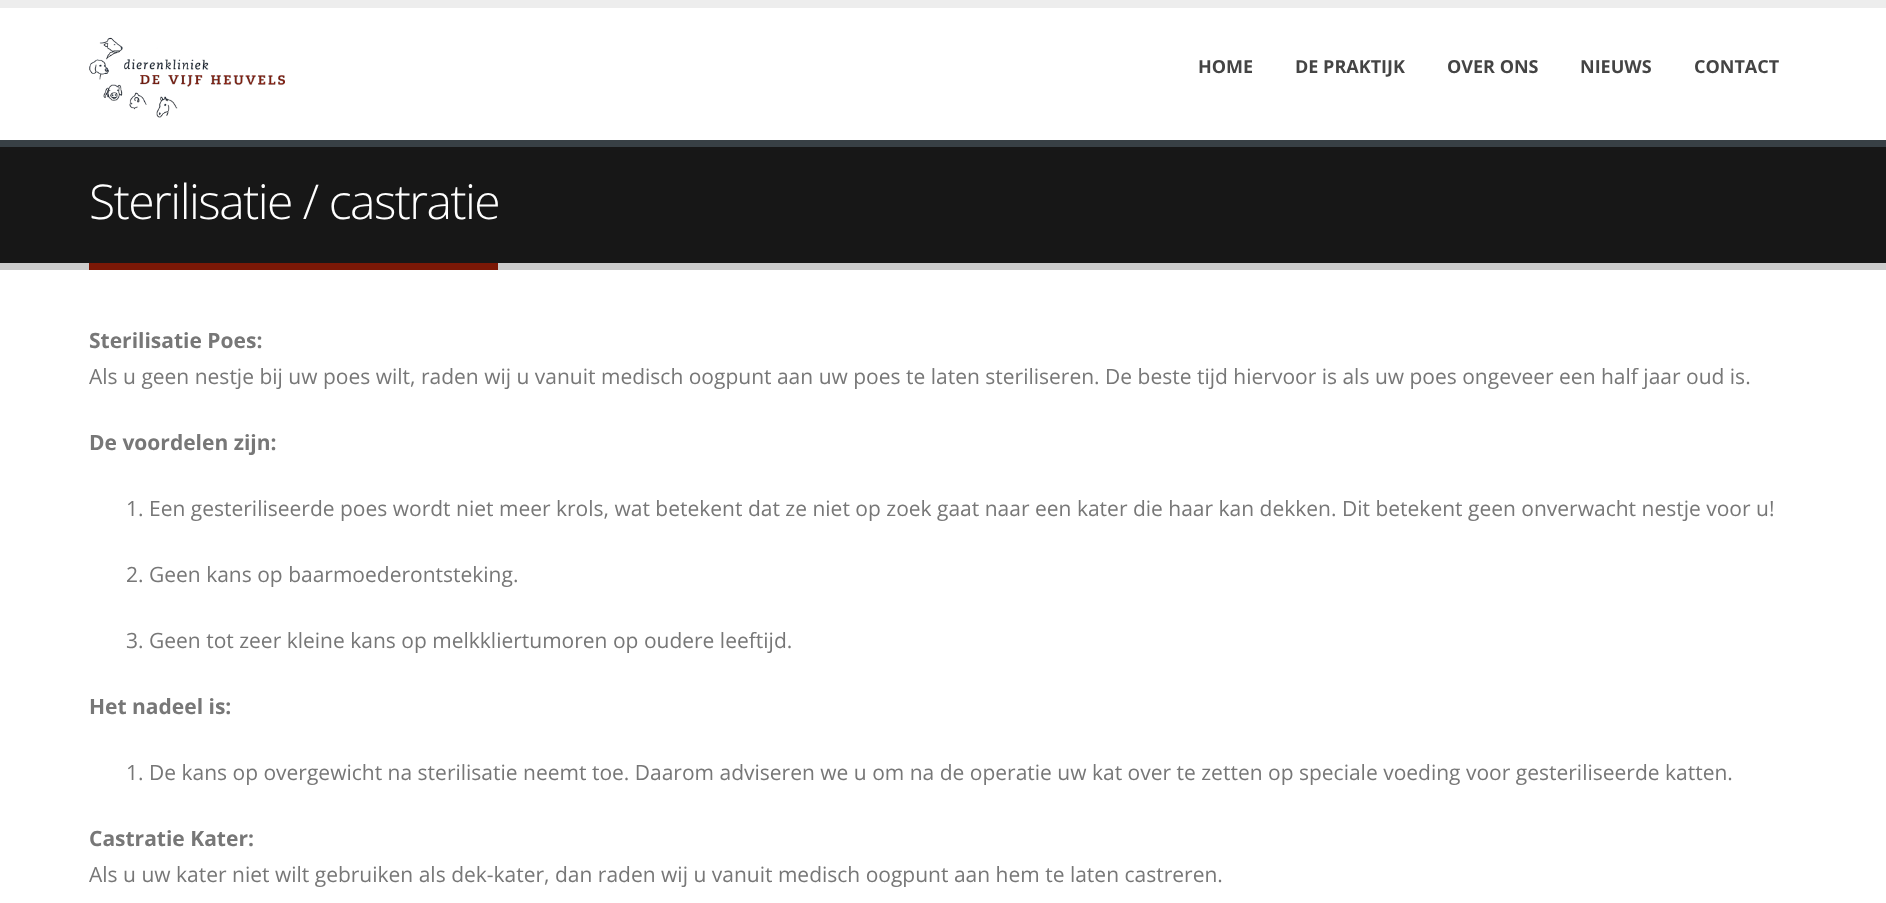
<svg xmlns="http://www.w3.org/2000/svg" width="1886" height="903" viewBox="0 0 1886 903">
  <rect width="100%" height="100%" fill="rgb(255,255,255)"/>
  <rect x="0" y="0" width="1886" height="8" fill="rgb(237,237,237)"/>
  <image x="89" y="37" width="196" height="81" href="pic1.png"/>
  <g font-family="Open Sans" font-size="18" font-weight="bold" fill="rgb(68,68,68)">
    <text x="1198" y="73">HOME</text>
    <text x="1295" y="73">DE PRAKTIJK</text>
    <text x="1447" y="73">OVER ONS</text>
    <text x="1580" y="73">NIEUWS</text>
    <text x="1694" y="73">CONTACT</text>
  </g>
  <rect x="0" y="147" width="1886" height="116" fill="rgb(23,23,23)"/>
  <rect x="0" y="140" width="1886" height="7" fill="rgb(56,64,69)"/>
  <rect x="0" y="263" width="1886" height="7" fill="rgb(204,204,204)"/>
  <rect x="89" y="263" width="409" height="7" fill="rgb(123,24,6)"/>
  <text x="89" y="219" font-family="Open Sans" font-size="48" font-weight="300" letter-spacing="-1.5" fill="rgb(255,255,255)">Sterilisatie / castratie</text>
  <text x="89" y="348" font-family="Open Sans" font-size="21" font-weight="bold" fill="rgb(119,119,119)">Sterilisatie Poes:</text>
  <text x="89" y="384" font-family="Open Sans" font-size="21" fill="rgb(119,119,119)">Als u geen nestje bij uw poes wilt, raden wij u vanuit medisch oogpunt aan uw poes te laten steriliseren. De beste tijd hiervoor is als uw poes ongeveer een half jaar oud is.</text>
  <text x="89" y="450" font-family="Open Sans" font-size="21" font-weight="bold" fill="rgb(119,119,119)">De voordelen zijn:</text>
  <g font-family="Open Sans" font-size="21" fill="rgb(119,119,119)">
    <text x="126" y="516">1. Een gesteriliseerde poes wordt niet meer krols, wat betekent dat ze niet op zoek gaat naar een kater die haar kan dekken. Dit betekent geen onverwacht nestje voor u!</text>
    <text x="126" y="582">2. Geen kans op baarmoederontsteking.</text>
    <text x="126" y="648">3. Geen tot zeer kleine kans op melkkliertumoren op oudere leeftijd.</text>
  </g>
  <text x="89" y="714" font-family="Open Sans" font-size="21" font-weight="bold" fill="rgb(119,119,119)">Het nadeel is:</text>
  <text x="126" y="780" font-family="Open Sans" font-size="21" fill="rgb(119,119,119)">1. De kans op overgewicht na sterilisatie neemt toe. Daarom adviseren we u om na de operatie uw kat over te zetten op speciale voeding voor gesteriliseerde katten.</text>
  <text x="89" y="846" font-family="Open Sans" font-size="21" font-weight="bold" fill="rgb(119,119,119)">Castratie Kater:</text>
  <text x="89" y="882" font-family="Open Sans" font-size="21" fill="rgb(119,119,119)">Als u uw kater niet wilt gebruiken als dek-kater, dan raden wij u vanuit medisch oogpunt aan hem te laten castreren.</text>
</svg>
